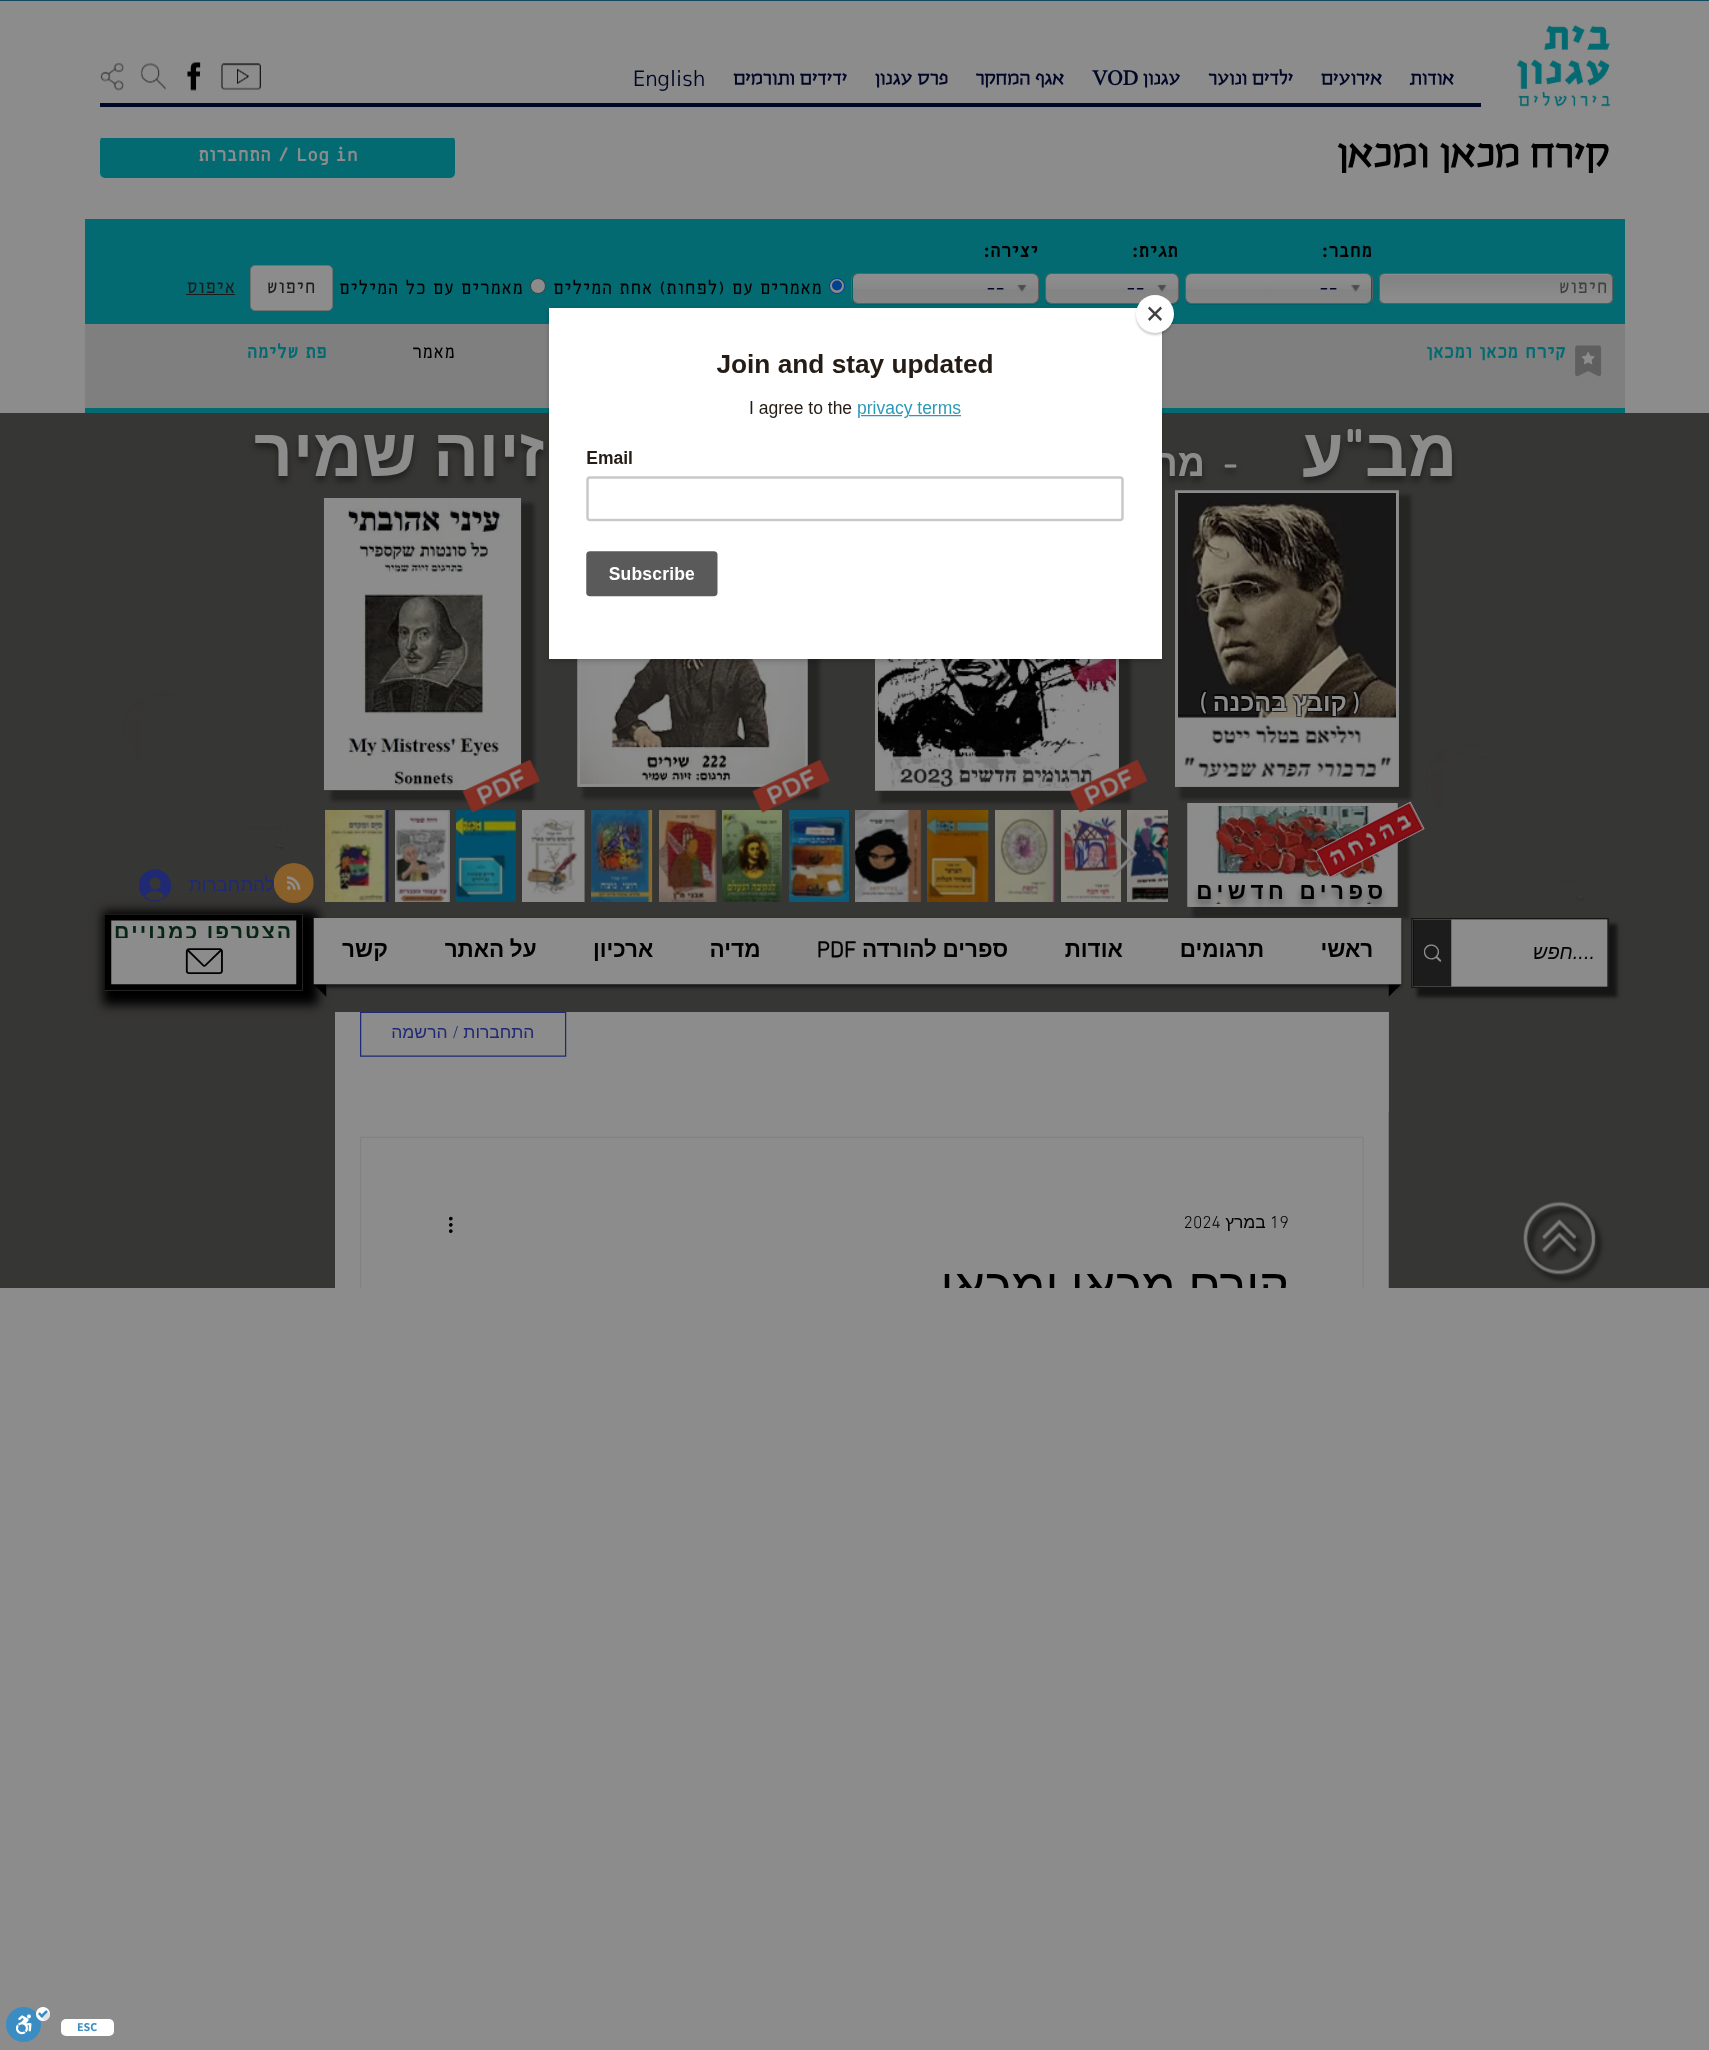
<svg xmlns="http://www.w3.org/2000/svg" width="1709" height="2050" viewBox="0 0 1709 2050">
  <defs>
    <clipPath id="clip1"><rect x="1379" y="273" width="234" height="31" rx="6"/></clipPath>
    <linearGradient id="g1" gradientUnits="userSpaceOnUse" x1="1496" y1="274" x2="1496" y2="303"><stop offset="0.2" stop-color="rgb(131,131,131)"/><stop offset="0.8" stop-color="rgb(140,140,140)"/></linearGradient>
    <linearGradient id="g2" gradientUnits="userSpaceOnUse" x1="1279" y1="274" x2="1279" y2="303"><stop offset="0.2" stop-color="rgb(140,140,140)"/><stop offset="0.5" stop-color="rgb(135,135,135)"/><stop offset="0.52" stop-color="rgb(131,131,131)"/><stop offset="1" stop-color="rgb(134,134,134)"/></linearGradient>
    <linearGradient id="g3" gradientUnits="userSpaceOnUse" x1="1112" y1="274" x2="1112" y2="303"><stop offset="0.2" stop-color="rgb(140,140,140)"/><stop offset="0.5" stop-color="rgb(135,135,135)"/><stop offset="0.52" stop-color="rgb(131,131,131)"/><stop offset="1" stop-color="rgb(134,134,134)"/></linearGradient>
    <linearGradient id="g4" gradientUnits="userSpaceOnUse" x1="945" y1="274" x2="945" y2="303"><stop offset="0.2" stop-color="rgb(140,140,140)"/><stop offset="0.5" stop-color="rgb(135,135,135)"/><stop offset="0.52" stop-color="rgb(131,131,131)"/><stop offset="1" stop-color="rgb(134,134,134)"/></linearGradient>
  </defs>
  <rect width="100%" height="100%" fill="rgb(140,140,140)"/>
  <rect x="100" y="136" width="355" height="42" rx="5" fill="rgb(3,106,114)"/>
  <rect x="101" y="136" width="353" height="2" fill="rgb(140,140,140)"/>
  <image x="1516" y="25" width="94" height="82" href="pic1.png"/>
  <g font-family="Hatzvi" font-size="21.25" font-weight="bold" font-style="italic" direction="rtl" fill="rgb(0,7,39)">
    <text x="1454" y="85">אודות</text>
    <text x="1382" y="85">אירועים</text>
    <text x="1293" y="85">ילדים ונוער</text>
    <text x="1180" y="85">עגנון</text>
  </g>
  <text x="1092" y="85" font-family="Hatzvi" font-size="21.25" font-weight="bold" font-style="italic" fill="rgb(0,7,39)">VOD</text>
  <g font-family="Hatzvi" font-size="21.25" font-weight="bold" font-style="italic" direction="rtl" fill="rgb(0,7,39)">
    <text x="1064" y="85">אגף המחקר</text>
    <text x="948" y="85">פרס עגנון</text>
    <text x="847" y="85">ידידים ותורמים</text>
  </g>
  <text x="633" y="86" font-family="'M PLUS 1p'" font-size="21.25" fill="rgb(0,7,39)">English</text>
  <image x="221" y="63" width="40" height="27" href="pic2.png"/>
  <image x="187" y="62" width="14" height="29" href="pic3.png"/>
  <image x="140" y="62" width="26" height="28" href="pic4.png"/>
  <image x="100" y="63" width="24" height="28" href="pic5.png"/>
  <rect x="100" y="103" width="1381" height="4" fill="rgb(0,7,39)"/>
  <text x="1609" y="168" font-family="Hatzvi" font-size="45" font-weight="bold" font-style="italic" direction="rtl" fill="rgb(0,0,0)">קירח מכאן ומכאן</text>
  <text x="296" y="161" font-family="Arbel" font-size="20" font-weight="bold" fill="rgb(140,140,140)">Log in</text>
  <text x="289" y="161" font-family="Arbel" font-size="20" font-weight="bold" direction="rtl" fill="rgb(140,140,140)">/ התחברות</text>
  <rect x="85" y="219" width="1540" height="105" fill="rgb(3,106,114)"/>
  <g clip-path="url(#clip1)">
    <rect x="1379" y="274" width="234" height="29" fill="url(#g1)"/>
  </g>
  <path d="M1385 275H1606C1609 275 1611 277 1611 280V279C1611 276 1609 274 1606 274H1385C1382 274 1380 276 1380 279V280C1380 277 1382 275 1385 275Z" fill="rgb(140,140,140)"/>
  <rect x="1379.5" y="273.5" width="233" height="30" rx="5.5" fill="none" stroke="rgb(94,94,94)"/>
  <text x="1608" y="293" font-family="Arbel" font-size="20" direction="rtl" fill="rgb(64,64,64)">חיפוש</text>
  <text x="1372" y="257" font-family="Arbel" font-size="20" font-weight="bold" direction="rtl" fill="rgb(0,0,0)">מחבר:</text>
  <rect x="1185" y="274" width="188" height="31" rx="6" fill="rgba(0,0,0,0.1)" filter="blur(0.5px)"/>
  <rect x="1186" y="274" width="185" height="29" rx="5" fill="url(#g2)"/>
  <rect x="1185.5" y="273.5" width="187" height="30" rx="5.5" fill="none" stroke="rgb(94,94,94)"/>
  <image x="1351" y="284" width="10" height="8" href="pic6.png"/>
  <text x="1319" y="293" font-family="Arbel" font-size="16" font-weight="bold" fill="rgb(0,7,39)">--</text>
  <text x="1178" y="257" font-family="Arbel" font-size="20" font-weight="bold" direction="rtl" fill="rgb(0,0,0)">תגית:</text>
  <rect x="1045" y="274" width="134" height="31" rx="6" fill="rgba(0,0,0,0.1)" filter="blur(0.5px)"/>
  <rect x="1046" y="274" width="132" height="29" rx="5" fill="url(#g3)"/>
  <rect x="1045.5" y="273.5" width="133" height="30" rx="5.5" fill="none" stroke="rgb(94,94,94)"/>
  <image x="1157" y="284" width="10" height="8" href="pic7.png"/>
  <text x="1126" y="293" font-family="Arbel" font-size="16" font-weight="bold" fill="rgb(0,7,39)">--</text>
  <text x="1038" y="257" font-family="Arbel" font-size="20" font-weight="bold" direction="rtl" fill="rgb(0,0,0)">יצירה:</text>
  <rect x="851" y="274" width="188" height="31" rx="6" fill="rgba(0,0,0,0.1)" filter="blur(0.5px)"/>
  <rect x="853" y="274" width="185" height="29" rx="5" fill="url(#g4)"/>
  <rect x="851.5" y="273.5" width="187" height="30" rx="5.5" fill="none" stroke="rgb(94,94,94)"/>
  <image x="1017" y="284" width="10" height="8" href="pic8.png"/>
  <text x="986" y="293" font-family="Arbel" font-size="16" font-weight="bold" fill="rgb(0,7,39)">--</text>
  <circle cx="837" cy="286" r="7.5" fill="rgb(140,140,140)" stroke="rgb(0,64,140)"/>
  <circle cx="837" cy="285.5" r="5" fill="rgb(0,64,140)"/>
  <text x="822" y="294" font-family="Arbel" font-size="20" direction="rtl" fill="rgb(0,0,0)">מאמרים עם (לפחות) אחת המילים</text>
  <circle cx="538" cy="286" r="7.5" fill="rgb(140,140,140)" stroke="rgb(65,65,65)"/>
  <text x="523" y="294" font-family="Arbel" font-size="20" direction="rtl" fill="rgb(0,0,0)">מאמרים עם כל המילים</text>
  <rect x="250.5" y="265.5" width="82" height="45" rx="4.5" fill="rgb(140,140,140)" stroke="rgb(112,112,112)"/>
  <g font-family="Arbel" font-size="20" direction="rtl" fill="rgb(28,28,28)">
    <text x="316" y="293">חיפוש</text>
    <text x="235" y="293">איפוס</text>
  </g>
  <rect x="186" y="294" width="49" height="1" fill="rgb(28,28,28)"/>
  <rect x="85" y="324" width="1540" height="84" fill="rgb(127,127,127)"/>
  <rect x="85" y="408" width="1540" height="5" fill="rgb(3,106,114)"/>
  <image x="1575" y="345" width="27" height="32" href="pic9.png"/>
  <image x="1581" y="352" width="14" height="13" href="pic10.png"/>
  <text x="1566" y="358" font-family="Arbel" font-size="20" font-weight="bold" direction="rtl" fill="rgb(3,106,114)">קירח מכאן ומכאן</text>
  <text x="455" y="358" font-family="Arbel" font-size="20" direction="rtl" fill="rgb(0,0,0)">מאמר</text>
  <text x="327" y="358" font-family="Arbel" font-size="20" font-weight="bold" direction="rtl" fill="rgb(3,106,114)">פת שלימה</text>
  <image x="0" y="413" width="1709" height="875" href="pic11.png"/>
  <rect x="549" y="310" width="612" height="351" fill="rgba(0,0,0,0.2)" filter="blur(2.5px)"/>
  <image x="549" y="308" width="613" height="351" href="pic12.png"/>
  <rect x="1136" y="298" width="38" height="37" rx="18.5" fill="rgba(0,0,0,0.2)" filter="blur(1px)"/>
  <circle cx="1155" cy="314" r="19" fill="rgb(255,255,255)"/>
  <path d="M1160.5 306.5L1162 308.5L1149.5 321L1148 319Z" fill="rgb(65,65,65)"/>
  <path d="M1148 308.5L1149.5 306.5L1162 319L1160.5 321Z" fill="rgb(65,65,65)"/>
  <rect x="0" y="0" width="1709" height="1" fill="rgb(21,73,95)"/>
  <rect x="61" y="2019" width="53" height="17" rx="5" fill="rgb(255,255,255)"/>
  <text x="77" y="2031" font-family="Assistant" font-size="12" font-weight="bold" fill="rgb(58,141,194)">ESC</text>
  <image x="6" y="2007" width="44" height="35" href="pic13.png"/>
</svg>
